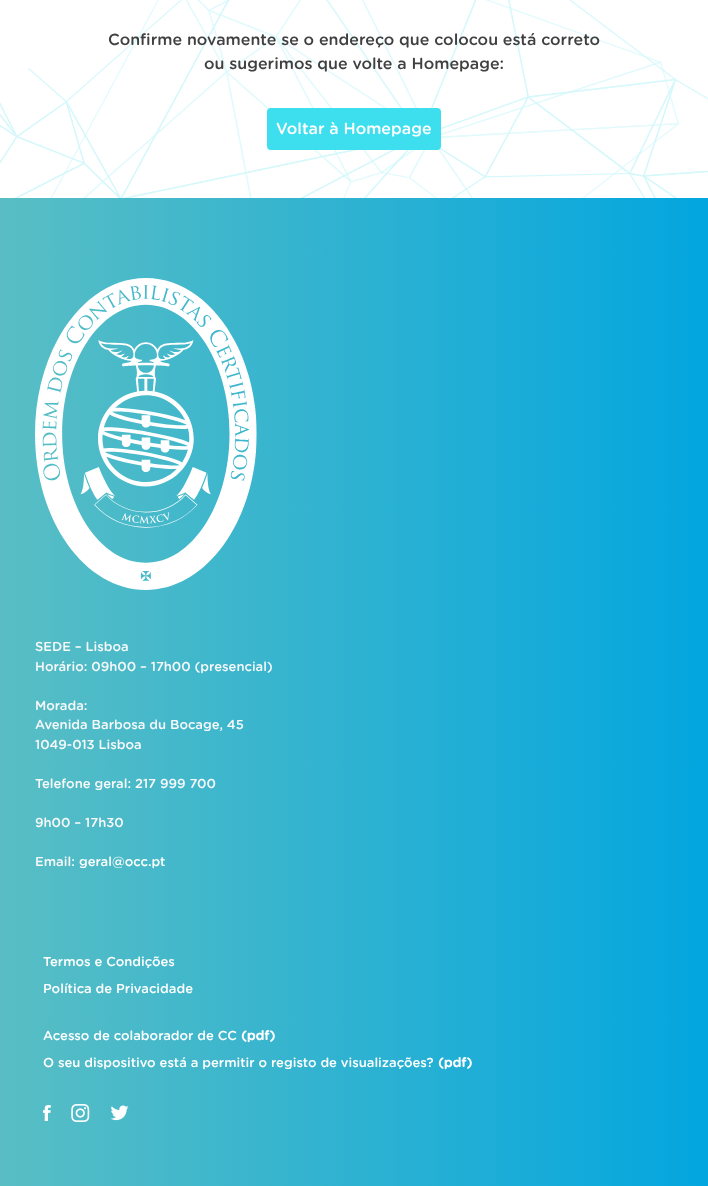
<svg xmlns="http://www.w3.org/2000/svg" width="708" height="1186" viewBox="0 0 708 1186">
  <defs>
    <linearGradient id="g1" gradientUnits="userSpaceOnUse" x1="0" y1="867" x2="708" y2="867"><stop offset="0" stop-color="rgb(89,190,196)"/><stop offset="1" stop-color="rgb(3,166,223)"/></linearGradient>
  </defs>
  <rect width="100%" height="100%" fill="rgb(255,255,255)"/>
  <image x="0" y="0" width="708" height="198" href="pic1.png"/>
  <g font-family="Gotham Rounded" font-size="16" font-weight="500" fill="rgb(64,64,64)">
    <text x="108" y="45">Confirme novamente se o endereço que colocou está correto</text>
    <text x="204" y="69">ou sugerimos que volte a Homepage:</text>
  </g>
  <rect x="267" y="108" width="174" height="42" rx="4" fill="rgb(61,222,237)"/>
  <text x="276" y="134" font-family="Gotham Rounded" font-size="16" font-weight="500" fill="rgb(255,255,255)">Voltar à Homepage</text>
  <rect x="0" y="198" width="708" height="988" fill="url(#g1)"/>
  <image x="35" y="278" width="222" height="312" href="pic2.png"/>
  <g font-family="Gotham Rounded" font-size="13" font-weight="500" fill="rgb(248,249,250)">
    <text>
      <tspan x="35" y="651">SEDE – Lisboa</tspan>
      <tspan x="35" y="671">Horário: 09h00 – 17h00 (presencial)</tspan>
    </text>
    <text>
      <tspan x="35" y="710">Morada:</tspan>
      <tspan x="35" y="729">Avenida Barbosa du Bocage, 45</tspan>
      <tspan x="35" y="749">1049-013 Lisboa</tspan>
    </text>
    <text x="35" y="788">Telefone geral: 217 999 700</text>
    <text x="35" y="827">9h00 – 17h30</text>
    <text x="35" y="866">Email:</text>
  </g>
  <g font-family="Gotham Rounded" font-size="13" font-weight="500" fill="rgb(255,255,255)">
    <text x="79" y="866">geral@occ.pt</text>
    <text x="43" y="966">Termos e Condições</text>
    <text x="43" y="993">Política de Privacidade</text>
    <text x="43" y="1040">Acesso de colaborador de CC</text>
  </g>
  <text x="241" y="1040" font-family="Gotham Rounded" font-size="13" font-weight="bold" fill="rgb(255,255,255)">(pdf)</text>
  <text x="43" y="1067" font-family="Gotham Rounded" font-size="13" font-weight="500" fill="rgb(255,255,255)">O seu dispositivo está a permitir o registo de visualizações?</text>
  <text x="438" y="1067" font-family="Gotham Rounded" font-size="13" font-weight="bold" fill="rgb(255,255,255)">(pdf)</text>
  <image x="43" y="1105" width="8" height="16" href="pic3.png"/>
  <image x="71" y="1104" width="19" height="18" href="pic4.png"/>
  <image x="110" y="1105" width="19" height="16" href="pic5.png"/>
</svg>
